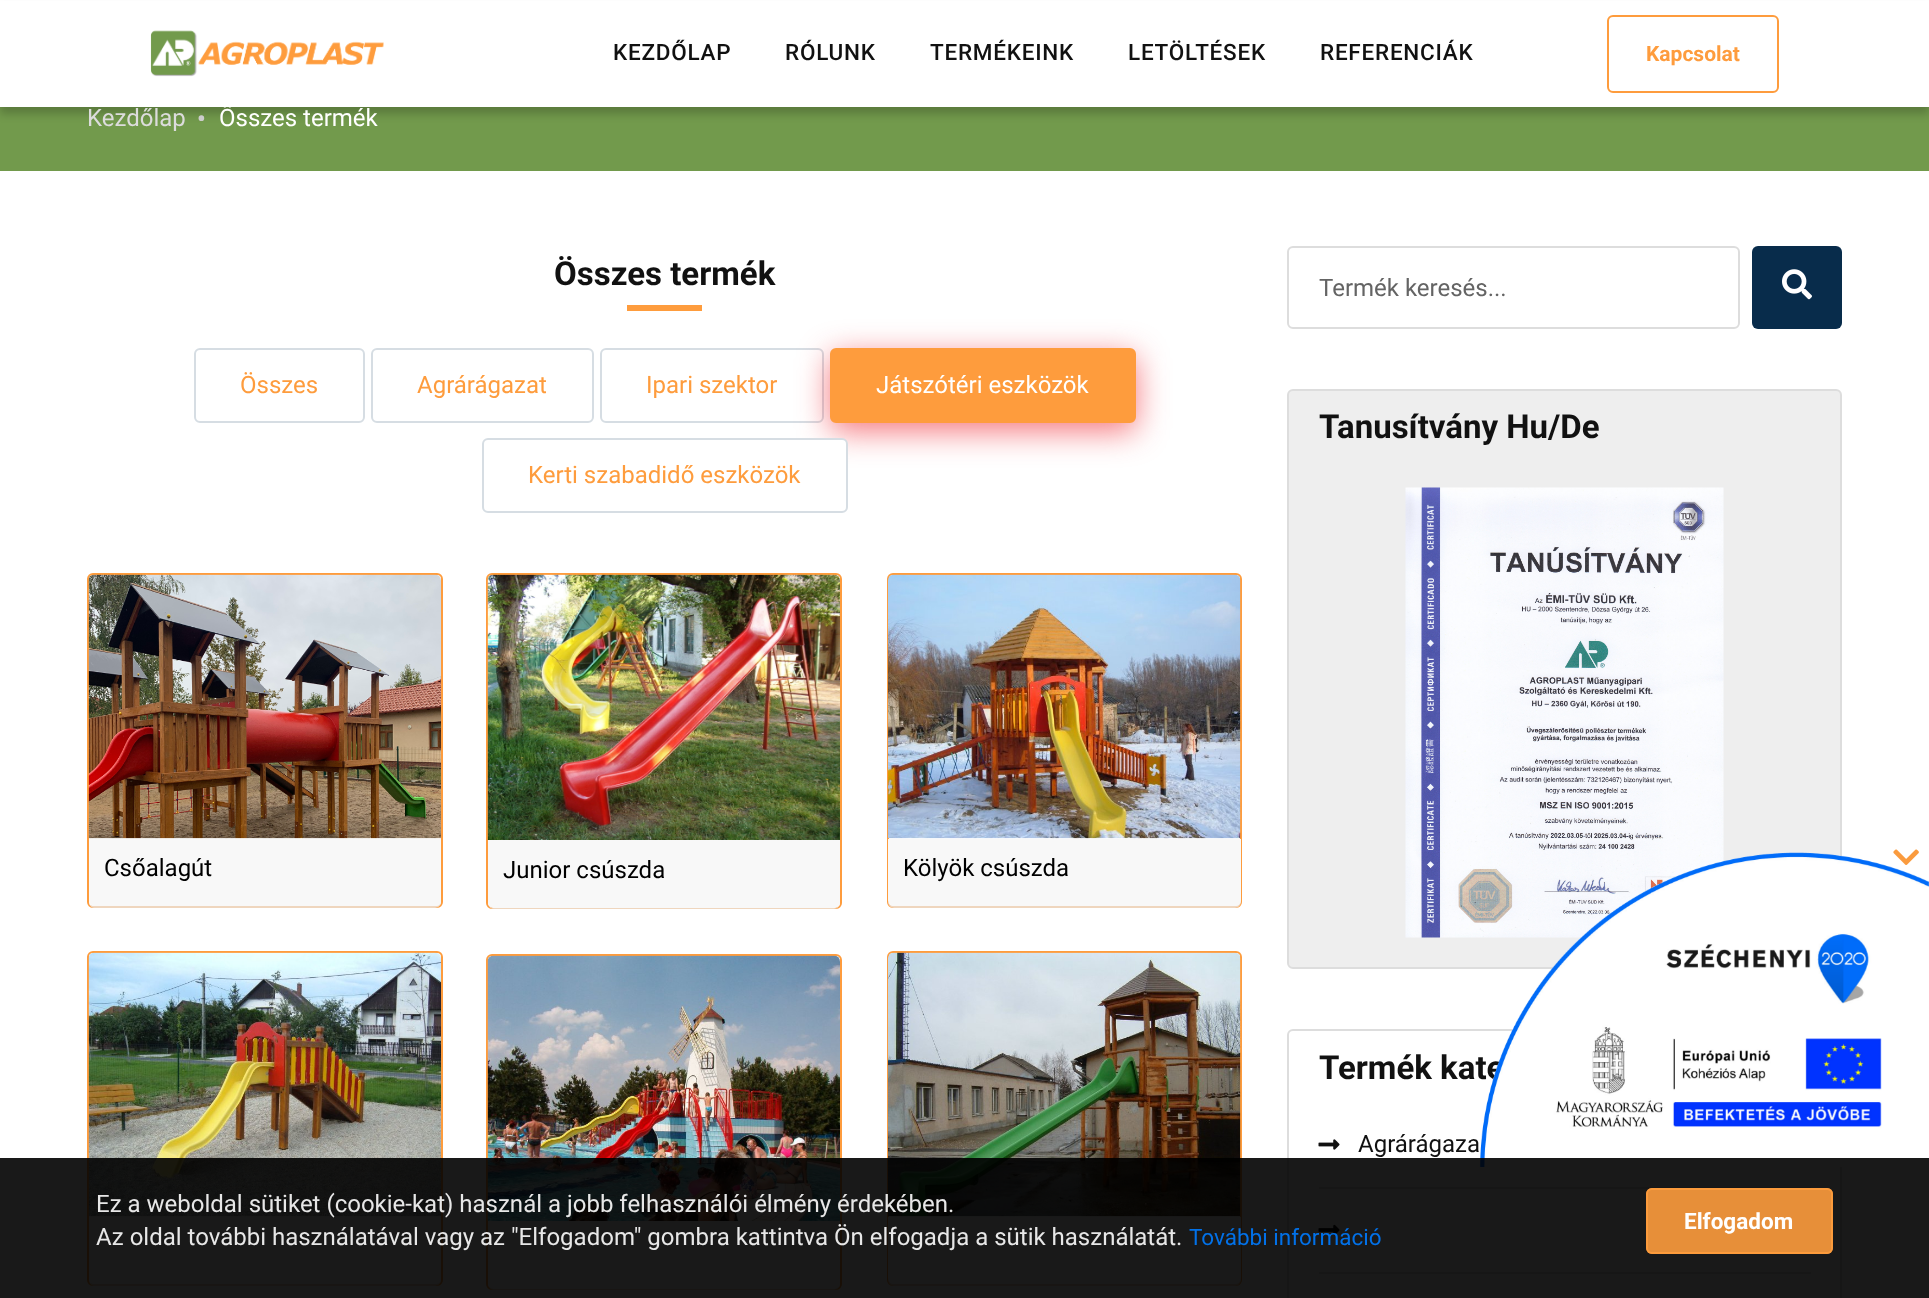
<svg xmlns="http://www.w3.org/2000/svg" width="1929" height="1298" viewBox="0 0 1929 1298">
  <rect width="100%" height="100%" fill="rgb(255,255,255)"/>
  <rect x="0" y="107" width="1929" height="64" fill="rgb(114,154,76)"/>
  <rect x="0" y="8" width="1929" height="106" fill="rgba(0,0,0,0.2)" filter="blur(4px)"/>
  <rect x="0" y="1" width="1929" height="106" fill="rgb(255,255,255)"/>
  <image x="150" y="30" width="234" height="47" href="pic1.png"/>
  <g font-family="Roboto" font-size="22.5" font-weight="500" letter-spacing="0.75" fill="rgb(17,17,17)">
    <text x="613" y="60">KEZDŐLAP</text>
    <text x="785" y="60">RÓLUNK</text>
    <text x="930" y="60">TERMÉKEINK</text>
    <text x="1128" y="60">LETÖLTÉSEK</text>
    <text x="1320" y="60">REFERENCIÁK</text>
  </g>
  <rect x="1608" y="16" width="170" height="76" rx="5" fill="none" stroke="rgb(254,156,61)" stroke-width="2"/>
  <text x="1646" y="61" font-family="Roboto" font-size="21" font-weight="bold" fill="rgb(254,156,61)">Kapcsolat</text>
  <text x="87" y="126" font-family="Roboto" font-size="24" fill="rgb(220,220,220)">Kezdőlap</text>
  <text x="197" y="127" font-family="Roboto" font-size="24" font-weight="bold" fill="rgb(204,204,204)">•</text>
  <text x="219" y="126" font-family="Roboto" font-size="24" fill="rgb(255,255,255)">Összes termék</text>
  <text x="554" y="285" font-family="Roboto" font-size="33" font-weight="bold" fill="rgb(17,17,17)">Összes termék</text>
  <rect x="627" y="305" width="75" height="6" fill="rgb(254,156,61)"/>
  <rect x="195" y="349" width="169" height="73" rx="5" fill="none" stroke="rgb(214,221,227)" stroke-width="2"/>
  <text x="240" y="393" font-family="Roboto" font-size="24" fill="rgb(254,156,61)">Összes</text>
  <rect x="372" y="349" width="221" height="73" rx="5" fill="none" stroke="rgb(214,221,227)" stroke-width="2"/>
  <text x="417" y="393" font-family="Roboto" font-size="24" fill="rgb(254,156,61)">Agrárágazat</text>
  <rect x="601" y="349" width="222" height="73" rx="5" fill="none" stroke="rgb(214,221,227)" stroke-width="2"/>
  <text x="646" y="393" font-family="Roboto" font-size="24" fill="rgb(254,156,61)">Ipari szektor</text>
  <rect x="830" y="356" width="306" height="75" rx="6" fill="rgba(238,27,37,0.6)" filter="blur(16px)"/>
  <rect x="831" y="349" width="304" height="73" rx="5" fill="rgb(254,156,61)" stroke="rgb(254,156,61)" stroke-width="2"/>
  <text x="876" y="393" font-family="Roboto" font-size="24" fill="rgb(255,255,255)">Játszótéri eszközök</text>
  <rect x="483" y="439" width="364" height="73" rx="5" fill="rgb(255,255,255)" stroke="rgb(214,221,227)" stroke-width="2"/>
  <text x="528" y="483" font-family="Roboto" font-size="24" fill="rgb(254,156,61)">Kerti szabadidő eszközök</text>
  <rect x="88" y="574" width="354" height="333" rx="5" fill="none" stroke="rgb(254,156,61)" stroke-width="2"/>
  <image x="88" y="574" width="353" height="265" href="pic2.png"/>
  <path d="M89 902C89 906 92 908 95 908H435C438 908 441 905 441 902V900C441 903 438 906 435 906H94C92 906 90 905 89 902Z" fill="rgba(233,233,233,0.75)"/>
  <path d="M89 839H441V900C441 903.5 438.5 906 435 906H95C91.5 906 89 903.5 89 900Z" fill="rgb(248,248,248)"/>
  <text x="104" y="876" font-family="Roboto" font-size="24" fill="rgb(0,0,0)">Csőalagút</text>
  <rect x="487" y="574" width="354" height="334" rx="5" fill="none" stroke="rgb(254,156,61)" stroke-width="2"/>
  <image x="487" y="574" width="353" height="266" href="pic3.png"/>
  <path d="M488 904C489 907 491 909 494 909H834C837 909 840 906 840 903V902C840 905 837 908 834 908H494C491 908 489 906 488 904Z" fill="rgba(233,233,233,0.75)"/>
  <path d="M488 840H840V902C840 905.5 837.5 908 834 908H494C490.5 908 488 905.5 488 902Z" fill="rgb(248,248,248)"/>
  <text x="503" y="878" font-family="Roboto" font-size="24" fill="rgb(0,0,0)">Junior csúszda</text>
  <rect x="888" y="574" width="353" height="333" rx="5" fill="none" stroke="rgb(254,156,61)" stroke-width="2"/>
  <image x="888" y="574" width="353" height="265" href="pic4.png"/>
  <path d="M888 900V902C888 905 891 908 894 908H1235C1238 908 1241 905 1241 902V840H1240V900C1240 903 1238 906 1234 906H894C891 906 888 903 888 900Z" fill="rgba(233,233,233,0.75)"/>
  <path d="M888 839H1241V900C1241 903.5 1238.5 906 1235 906H894C890.5 906 888 903.5 888 900Z" fill="rgb(248,248,248)"/>
  <text x="903" y="876" font-family="Roboto" font-size="24" fill="rgb(0,0,0)">Kölyök csúszda</text>
  <rect x="88" y="952" width="354" height="333" rx="5" fill="none" stroke="rgb(254,156,61)" stroke-width="2"/>
  <image x="88" y="952" width="353" height="265" href="pic5.png"/>
  <path d="M89 1280C89 1284 92 1286 95 1286H435C438 1286 441 1283 441 1280V1278C441 1281 438 1284 435 1284H94C92 1284 90 1283 89 1280Z" fill="rgba(233,233,233,0.75)"/>
  <path d="M89 1217H441V1278C441 1281.5 438.5 1284 435 1284H95C91.5 1284 89 1281.5 89 1278Z" fill="rgb(248,248,248)"/>
  <rect x="487" y="955" width="354" height="334" rx="5" fill="none" stroke="rgb(254,156,61)" stroke-width="2"/>
  <image x="487" y="955" width="353" height="266" href="pic6.png"/>
  <path d="M488 1285C489 1288 491 1290 494 1290H834C837 1290 840 1287 840 1284V1282C840 1286 837 1288 834 1288H494C491 1288 489 1287 488 1285Z" fill="rgba(233,233,233,0.75)"/>
  <path d="M488 1221H840V1283C840 1286.5 837.5 1289 834 1289H494C490.5 1289 488 1286.5 488 1283Z" fill="rgb(248,248,248)"/>
  <rect x="888" y="952" width="353" height="333" rx="5" fill="none" stroke="rgb(254,156,61)" stroke-width="2"/>
  <image x="888" y="952" width="353" height="265" href="pic7.png"/>
  <path d="M888 1278V1280C888 1283 891 1286 894 1286H1235C1238 1286 1241 1283 1241 1280V1218H1240V1278C1240 1281 1238 1284 1234 1284H894C891 1284 888 1281 888 1278Z" fill="rgba(233,233,233,0.75)"/>
  <path d="M888 1217H1241V1278C1241 1281.5 1238.5 1284 1235 1284H894C890.5 1284 888 1281.5 888 1278Z" fill="rgb(248,248,248)"/>
  <rect x="1288" y="247" width="451" height="81" rx="5" fill="none" stroke="rgb(221,221,221)" stroke-width="2"/>
  <text x="1319" y="296" font-family="Roboto" font-size="24" fill="rgb(100,100,100)">Termék keresés...</text>
  <rect x="1752" y="246" width="90" height="83" rx="6" fill="rgb(8,44,75)"/>
  <image x="1782" y="269" width="30" height="31" href="pic8.png"/>
  <rect x="1288" y="390" width="553" height="578" rx="5" fill="rgb(238,238,238)" stroke="rgb(221,221,221)" stroke-width="2"/>
  <text x="1319" y="438" font-family="Roboto" font-size="33" font-weight="bold" fill="rgb(17,17,17)">Tanusítvány Hu/De</text>
  <image x="1405" y="487" width="319" height="451" href="pic9.png"/>
  <rect x="1288" y="1030" width="553" height="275" rx="5" fill="none" stroke="rgb(221,221,221)" stroke-width="2"/>
  <text x="1319" y="1079" font-family="Roboto" font-size="33" font-weight="bold" fill="rgb(17,17,17)">Termék kate</text>
  <rect x="1319" y="1187" width="492" height="2" fill="rgb(221,221,221)"/>
  <image x="1318" y="1139" width="22" height="11" href="pic10.png"/>
  <text x="1358" y="1152" font-family="Roboto" font-size="24" fill="rgb(17,17,17)">Agrárágaza</text>
  <rect x="1319" y="1272" width="492" height="2" fill="rgb(221,221,221)"/>
  <image x="1318" y="1224" width="22" height="12" href="pic11.png"/>
  <image x="1479" y="852" width="450" height="315" href="pic13.png"/>
  <image x="1893" y="849" width="26" height="16" href="pic12.png"/>
  <rect x="0" y="1158" width="1929" height="140" fill="rgba(0,0,0,0.9)"/>
  <g font-family="Roboto" font-size="24" fill="rgb(231,231,231)">
    <text>
      <tspan x="96" y="1212">Ez a weboldal sütiket (cookie-kat) használ a jobb felhasználói élmény érdekében.</tspan>
      <tspan x="96" y="1245">Az oldal további használatával vagy az "Elfogadom" gombra kattintva Ön elfogadja a sütik használatát.</tspan>
    </text>
  </g>
  <text x="1189" y="1245" font-family="Roboto" font-size="22.5" fill="rgb(2,113,232)">További információ</text>
  <rect x="1646" y="1188" width="187" height="66" rx="6" fill="rgba(254,156,61,0.9)"/>
  <rect x="1647" y="1189" width="185" height="64" rx="5" fill="none" stroke="rgba(254,156,61,0.9)" stroke-width="2"/>
  <text x="1684" y="1229" font-family="Roboto" font-size="22.5" font-weight="bold" fill="rgb(255,255,255)">Elfogadom</text>
</svg>
